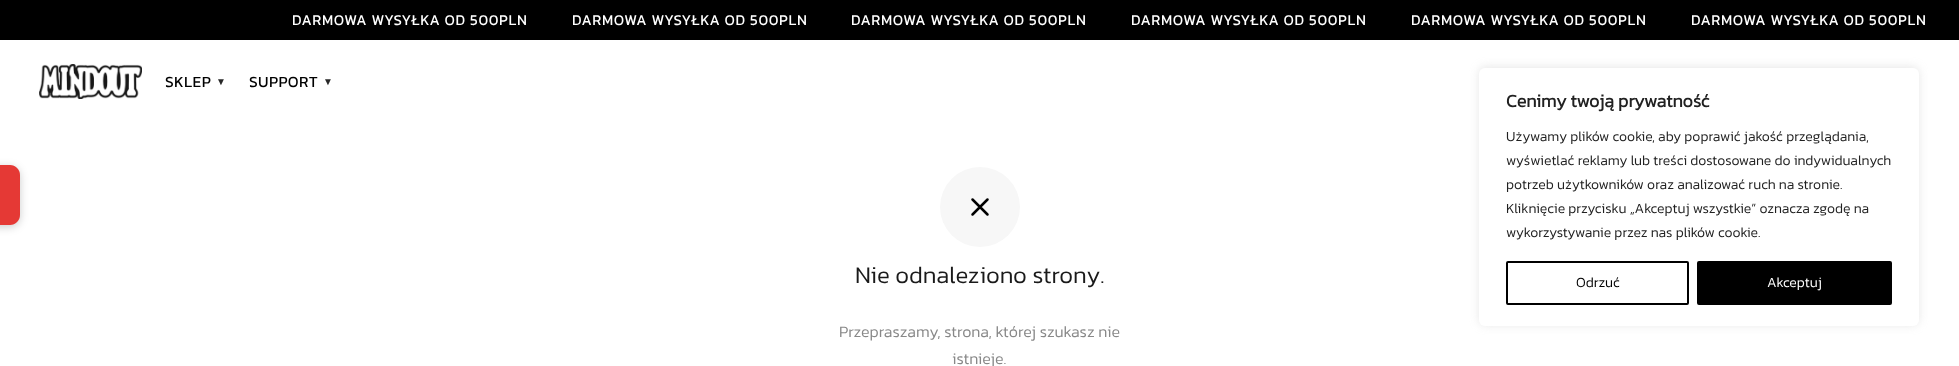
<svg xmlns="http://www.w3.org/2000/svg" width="1959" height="366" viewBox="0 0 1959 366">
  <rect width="100%" height="100%" fill="rgb(255,255,255)"/>
  <rect x="0" y="0" width="1959" height="40" fill="rgb(0,0,0)"/>
  <g font-family="Kanit" font-size="14.4" font-weight="bold" letter-spacing="1" fill="rgb(255,255,255)">
    <text x="292" y="25">DARMOWA WYSYŁKA OD 500PLN</text>
    <text x="572" y="25">DARMOWA WYSYŁKA OD 500PLN</text>
    <text x="851" y="25">DARMOWA WYSYŁKA OD 500PLN</text>
    <text x="1131" y="25">DARMOWA WYSYŁKA OD 500PLN</text>
    <text x="1411" y="25">DARMOWA WYSYŁKA OD 500PLN</text>
    <text x="1691" y="25">DARMOWA WYSYŁKA OD 500PLN</text>
  </g>
  <rect x="-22" y="167" width="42" height="60" rx="10" fill="rgba(0,0,0,0.2)" filter="blur(4px)"/>
  <path d="M-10 165H10C15.5 165 20 169.5 20 175V215C20 220.5 15.5 225 10 225H-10Z" fill="rgb(229,57,53)"/>
  <image x="39" y="64" width="103" height="35" href="pic1.png"/>
  <text x="165" y="87" font-family="Kanit" font-size="15" font-weight="bold" letter-spacing="0.75" fill="rgb(0,0,0)">SKLEP</text>
  <text x="216" y="85" font-family="Liberation Serif" font-size="10" font-weight="bold" letter-spacing="0.75" fill="rgb(40,40,40)">▼</text>
  <text x="249" y="87" font-family="Kanit" font-size="15" font-weight="bold" letter-spacing="0.75" fill="rgb(0,0,0)">SUPPORT</text>
  <text x="323" y="85" font-family="Liberation Serif" font-size="10" font-weight="bold" letter-spacing="0.75" fill="rgb(40,40,40)">▼</text>
  <circle cx="980" cy="207" r="40" fill="rgb(247,247,247)"/>
  <path d="M987.5 199.5L972.5 214.5M972.5 199.5L987.5 214.5" fill="none" stroke="rgb(0,0,0)" stroke-width="2.5" stroke-linecap="round" stroke-linejoin="round"/>
  <text x="855" y="283" font-family="Kanit" font-size="24" font-weight="300" fill="rgb(26,26,26)">Nie odnaleziono strony.</text>
  <g font-family="Kanit" font-size="16" font-weight="300" fill="rgb(136,136,136)">
    <text x="839" y="337">Przepraszamy, strona, której szukasz nie</text>
    <text x="952" y="364">istnieje.</text>
  </g>
  <rect x="1479" y="67" width="440" height="258" rx="6" fill="rgba(172,171,171,0.3)" filter="blur(5px)"/>
  <rect x="1479" y="68" width="440" height="258" rx="6" fill="rgb(255,255,255)"/>
  <text x="1506" y="107" font-family="Kanit" font-size="18" font-weight="bold" fill="rgb(33,33,33)">Cenimy twoją prywatność</text>
  <g font-family="Kanit" font-size="14" font-weight="300" fill="rgb(33,33,33)">
    <text>
      <tspan x="1506" y="141">Używamy plików cookie, aby poprawić jakość przeglądania,</tspan>
      <tspan x="1506" y="165">wyświetlać reklamy lub treści dostosowane do indywidualnych</tspan>
      <tspan x="1506" y="189">potrzeb użytkowników oraz analizować ruch na stronie.</tspan>
      <tspan x="1506" y="213">Kliknięcie przycisku „Akceptuj wszystkie” oznacza zgodę na</tspan>
      <tspan x="1506" y="237">wykorzystywanie przez nas plików cookie.</tspan>
    </text>
  </g>
  <rect x="1507" y="262" width="181" height="42" rx="1" fill="none" stroke="rgb(0,0,0)" stroke-width="2"/>
  <text x="1576" y="287" font-family="Kanit" font-size="14" font-weight="300" fill="rgb(0,0,0)">Odrzuć</text>
  <rect x="1698" y="262" width="193" height="42" rx="1" fill="rgb(0,0,0)" stroke="rgb(0,0,0)" stroke-width="2"/>
  <text x="1767" y="287" font-family="Kanit" font-size="14" font-weight="300" fill="rgb(255,255,255)">Akceptuj</text>
</svg>
